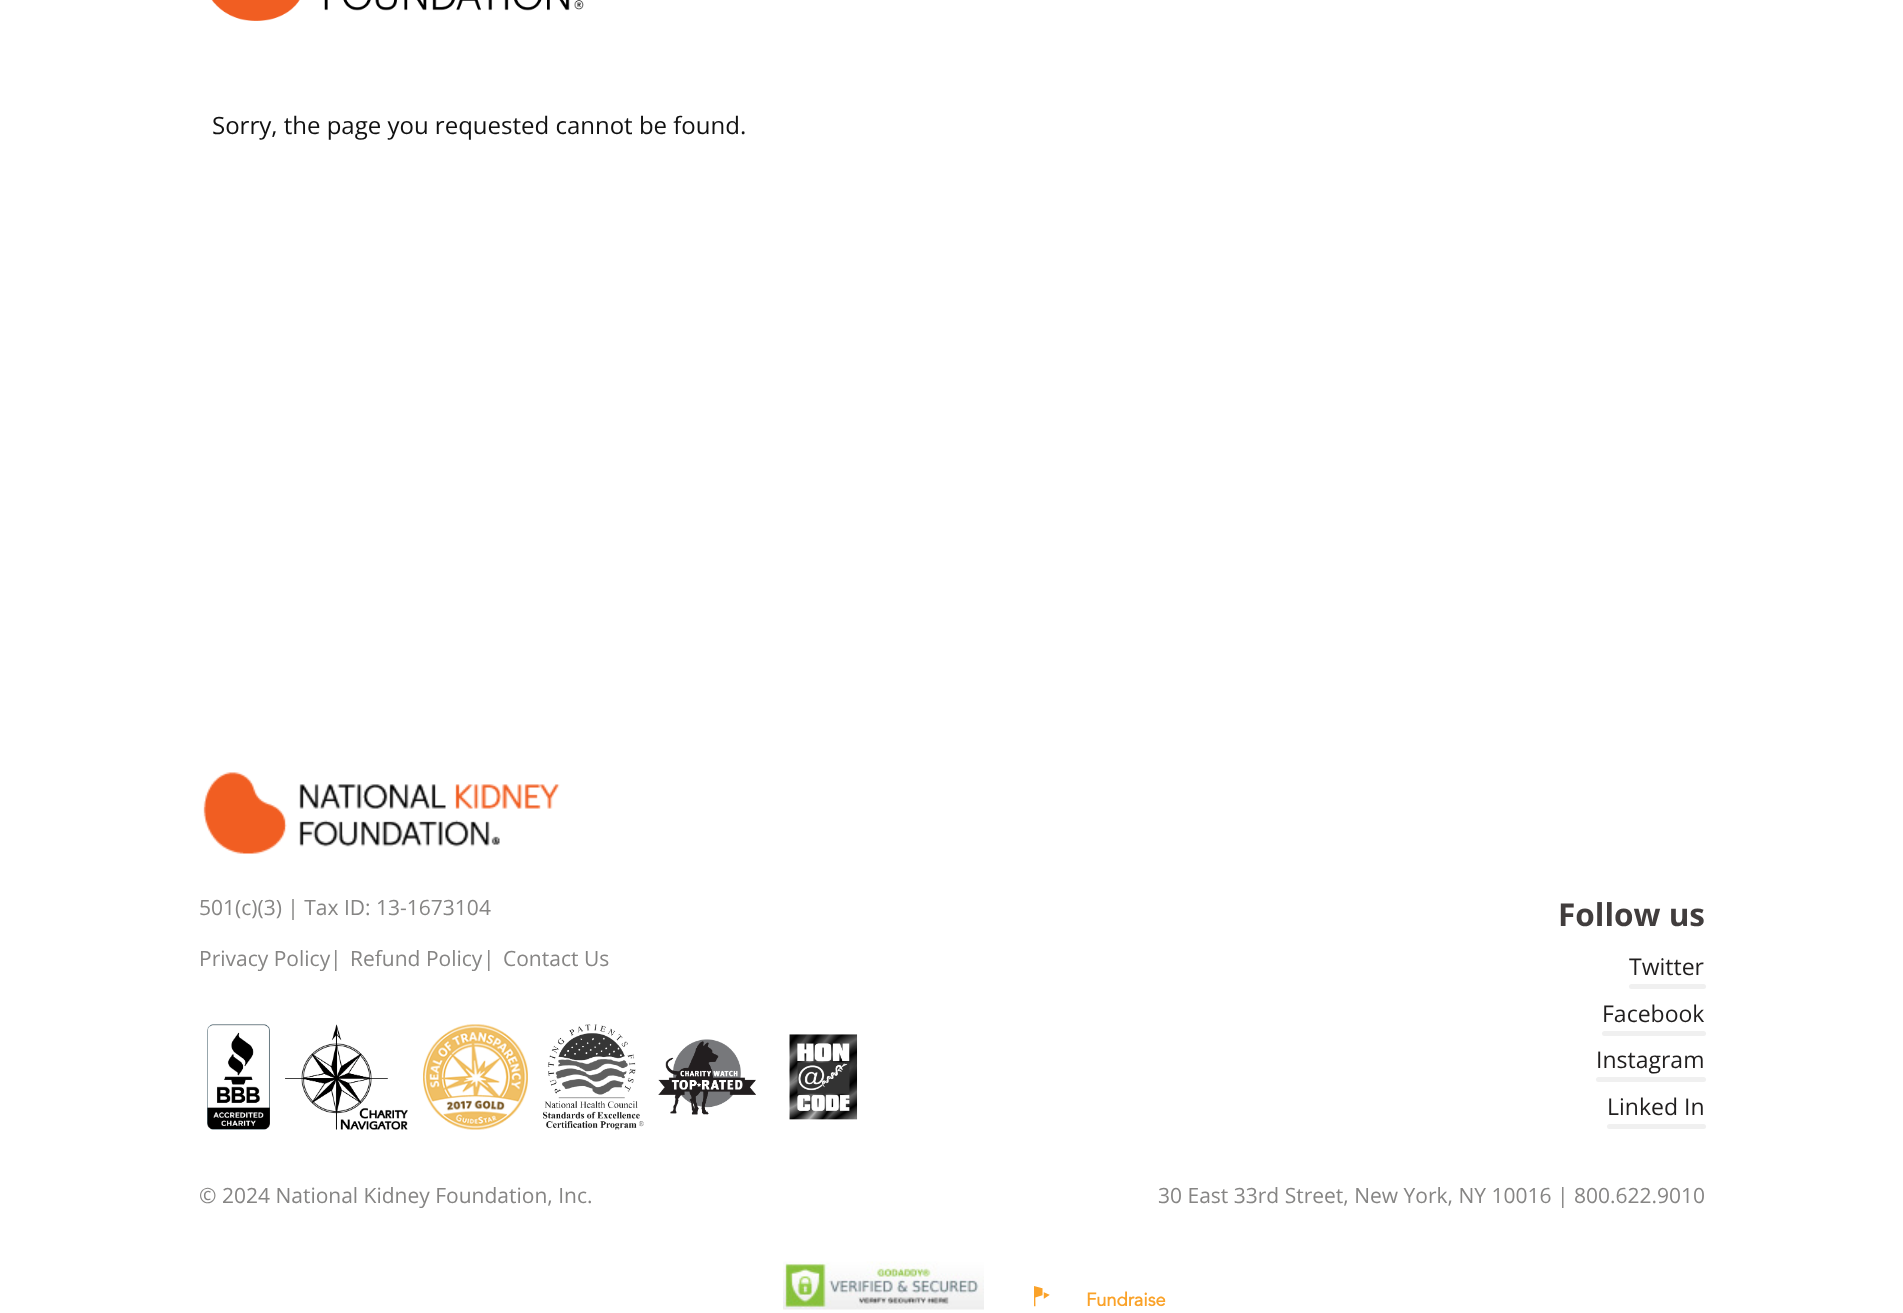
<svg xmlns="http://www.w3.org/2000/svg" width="1903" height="1313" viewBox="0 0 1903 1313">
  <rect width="100%" height="100%" fill="rgb(255,255,255)"/>
  <image x="211" y="0" width="373" height="21" href="pic1.png"/>
  <text x="212" y="134" font-family="Open Sans" font-size="24" fill="rgb(17,17,17)">Sorry, the page you requested cannot be found.</text>
  <image x="203" y="772" width="357" height="82" href="pic2.png"/>
  <g font-family="Open Sans" font-size="21" fill="rgb(134,133,132)">
    <text x="199" y="915">501(c)(3) | Tax ID: 13-1673104</text>
    <text x="199" y="966">Privacy Policy</text>
    <text x="330" y="966">|</text>
    <text x="350" y="966">Refund Policy</text>
    <text x="483" y="966">|</text>
    <text x="503" y="966">Contact Us</text>
  </g>
  <image x="207" y="1024" width="63" height="106" href="pic3.png"/>
  <image x="285" y="1024" width="123" height="106" href="pic4.png"/>
  <image x="423" y="1024" width="105" height="106" href="pic5.png"/>
  <image x="543" y="1024" width="101" height="106" href="pic6.png"/>
  <image x="658" y="1039" width="98" height="76" href="pic7.png"/>
  <image x="789" y="1034" width="69" height="86" href="pic8.png"/>
  <text x="1558" y="926" font-family="Open Sans" font-size="31.5" font-weight="bold" fill="rgb(65,61,61)">Follow us</text>
  <text x="1629" y="975" font-family="Open Sans" font-size="23" fill="rgb(32,30,30)">Twitter</text>
  <rect x="1629" y="984" width="77" height="5" rx="2.5" fill="rgb(240,240,240)"/>
  <text x="1602" y="1022" font-family="Open Sans" font-size="23" fill="rgb(32,30,30)">Facebook</text>
  <rect x="1602" y="1031" width="104" height="5" rx="2.5" fill="rgb(240,240,240)"/>
  <text x="1596" y="1068" font-family="Open Sans" font-size="23" fill="rgb(32,30,30)">Instagram</text>
  <rect x="1596" y="1077" width="110" height="5" rx="2.5" fill="rgb(240,240,240)"/>
  <text x="1607" y="1115" font-family="Open Sans" font-size="23" fill="rgb(32,30,30)">Linked In</text>
  <rect x="1607" y="1124" width="99" height="5" rx="2.5" fill="rgb(240,240,240)"/>
  <g font-family="Open Sans" font-size="21" fill="rgb(134,133,132)">
    <text x="199" y="1203">© 2024 National Kidney Foundation, Inc.</text>
    <text x="1158" y="1203">30 East 33rd Street, New York, NY 10016 | 800.622.9010</text>
  </g>
  <image x="783" y="1261" width="201" height="49" href="pic9.png"/>
  <image x="1034" y="1286" width="132" height="21" href="pic10.png"/>
</svg>
